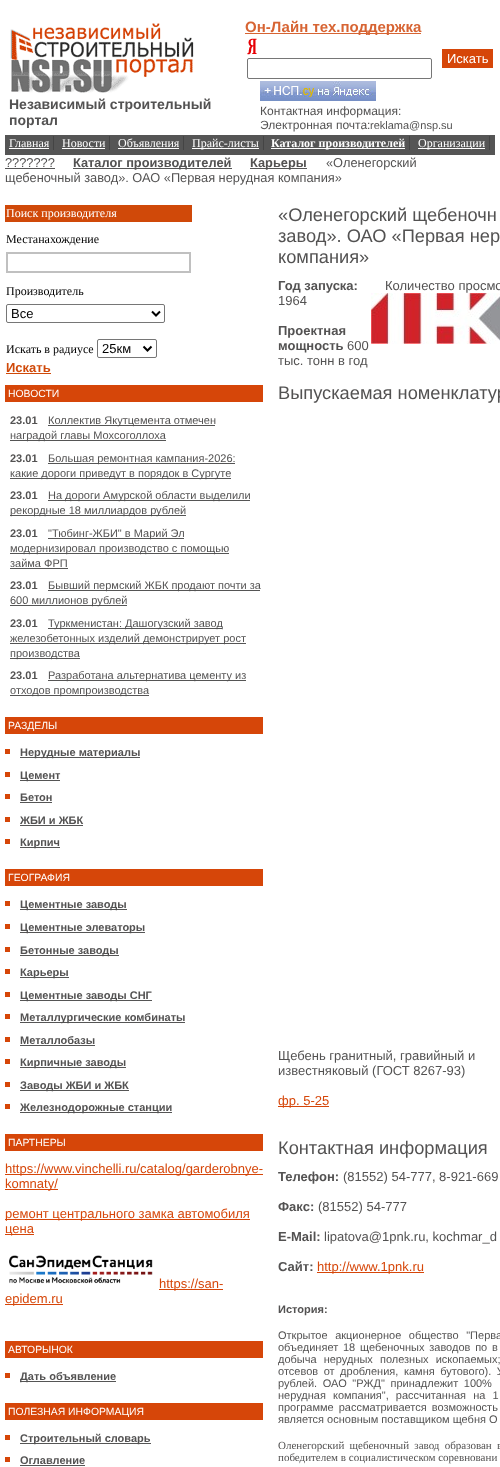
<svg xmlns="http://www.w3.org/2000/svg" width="500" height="1467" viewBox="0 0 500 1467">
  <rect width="100%" height="100%" fill="rgb(255,255,255)"/>
  <image x="10" y="23" width="184" height="70" href="pic1.png"/>
  <g font-family="Liberation Sans" font-size="14" font-weight="bold" fill="rgb(83,82,82)">
    <text>
      <tspan x="9" y="109">Независимый строительный</tspan>
      <tspan x="9" y="125">портал</tspan>
    </text>
  </g>
  <rect x="245" y="33" width="176" height="1" fill="rgb(215,100,51)"/>
  <text x="245" y="32" font-family="Liberation Sans" font-size="15" font-weight="bold" fill="rgb(215,100,51)">Он-Лайн тех.поддержка</text>
  <image x="247" y="38" width="10" height="17" href="pic2.png"/>
  <rect x="247.5" y="58.5" width="184" height="20" rx="1.5" fill="none" stroke="rgb(118,118,118)"/>
  <rect x="442" y="49" width="51" height="19" fill="rgb(214,70,9)"/>
  <text x="447" y="63" font-family="Liberation Sans" font-size="13" fill="rgb(255,255,255)">Искать</text>
  <image x="260" y="81" width="116" height="20" href="pic3.png"/>
  <g font-family="Liberation Sans" font-size="12" fill="rgb(83,82,82)">
    <text>
      <tspan x="260" y="115">Контактная информация:</tspan>
      <tspan x="260" y="129">Электронная почта:</tspan>
    </text>
  </g>
  <text x="370" y="129" font-family="Liberation Sans" font-size="11" fill="rgb(83,82,82)">reklama@nsp.su</text>
  <rect x="5" y="135" width="490" height="20" fill="rgb(85,85,85)"/>
  <text x="9" y="147" font-family="Liberation Serif" font-size="12" fill="rgb(255,255,255)">Главная</text>
  <rect x="53" y="136" width="1" height="14" fill="rgb(68,68,68)"/>
  <rect x="9" y="148" width="40" height="1" fill="rgb(255,255,255)"/>
  <text x="62" y="147" font-family="Liberation Serif" font-size="12" fill="rgb(255,255,255)">Новости</text>
  <rect x="109" y="136" width="1" height="14" fill="rgb(68,68,68)"/>
  <rect x="62" y="148" width="43" height="1" fill="rgb(255,255,255)"/>
  <text x="118" y="147" font-family="Liberation Serif" font-size="12" fill="rgb(255,255,255)">Объявления</text>
  <rect x="183" y="136" width="1" height="14" fill="rgb(68,68,68)"/>
  <rect x="118" y="148" width="61" height="1" fill="rgb(255,255,255)"/>
  <rect x="192" y="148" width="67" height="1" fill="rgb(255,255,255)"/>
  <text x="192" y="147" font-family="Liberation Serif" font-size="12" fill="rgb(255,255,255)">Прайс-листы</text>
  <rect x="263" y="136" width="1" height="14" fill="rgb(68,68,68)"/>
  <rect x="271" y="148" width="134" height="1" fill="rgb(255,255,255)"/>
  <text x="271" y="147" font-family="Liberation Serif" font-size="12" font-weight="bold" fill="rgb(255,255,255)">Каталог производителей</text>
  <rect x="409" y="136" width="1" height="14" fill="rgb(68,68,68)"/>
  <rect x="418" y="148" width="67" height="1" fill="rgb(255,255,255)"/>
  <text x="418" y="147" font-family="Liberation Serif" font-size="12" fill="rgb(255,255,255)">Организации</text>
  <rect x="489" y="136" width="1" height="14" fill="rgb(68,68,68)"/>
  <text x="5" y="167" font-family="Liberation Sans" font-size="12.8" fill="rgb(83,82,82)">???????</text>
  <rect x="5" y="168" width="50" height="1" fill="rgb(85,85,85)"/>
  <rect x="73" y="168" width="159" height="1" fill="rgb(85,85,85)"/>
  <text x="73" y="167" font-family="Liberation Sans" font-size="12.8" font-weight="bold" fill="rgb(83,82,82)">Каталог производителей</text>
  <rect x="250" y="168" width="57" height="1" fill="rgb(85,85,85)"/>
  <text x="250" y="167" font-family="Liberation Sans" font-size="12.8" font-weight="bold" fill="rgb(83,82,82)">Карьеры</text>
  <g font-family="Liberation Sans" font-size="12.8" fill="rgb(83,82,82)">
    <text x="326" y="167">«Оленегорский</text>
    <text x="5" y="182">щебеночный завод». ОАО «Первая нерудная компания»</text>
  </g>
  <rect x="5" y="205" width="187" height="17" fill="rgb(208,73,9)"/>
  <text x="6" y="217" font-family="Liberation Serif" font-size="12" fill="rgb(255,255,255)">Поиск производителя</text>
  <text x="6" y="243" font-family="Liberation Serif" font-size="12" fill="rgb(0,0,0)">Местанахождение</text>
  <rect x="7" y="253" width="183" height="19" fill="none" stroke="rgb(192,192,192)" stroke-width="2"/>
  <text x="6" y="295" font-family="Liberation Serif" font-size="12" fill="rgb(0,0,0)">Производитель</text>
  <rect x="6.5" y="304.5" width="158" height="18" rx="1.5" fill="none" stroke="rgb(118,118,118)"/>
  <path d="M152 311.5L156 315.5L160 311.5" fill="none" stroke="rgb(0,0,0)" stroke-width="2"/>
  <text x="11" y="318" font-family="Liberation Sans" font-size="13" fill="rgb(0,0,0)">Все</text>
  <text x="6" y="353" font-family="Liberation Serif" font-size="12" fill="rgb(0,0,0)">Искать в радиусе</text>
  <rect x="97.5" y="339.5" width="59" height="18" rx="1.5" fill="none" stroke="rgb(118,118,118)"/>
  <path d="M143.5 346.5L147.5 350.5L151.5 346.5" fill="none" stroke="rgb(0,0,0)" stroke-width="2"/>
  <text x="102" y="353" font-family="Liberation Sans" font-size="13" fill="rgb(0,0,0)">25км</text>
  <text x="6" y="372" font-family="Liberation Sans" font-size="13" font-weight="bold" fill="rgb(208,73,9)">Искать</text>
  <rect x="6" y="373" width="45" height="1" fill="rgb(208,73,9)"/>
  <rect x="5" y="385" width="258" height="17" fill="rgb(214,70,9)"/>
  <text x="8" y="397" font-family="Liberation Sans" font-size="10.4" fill="rgb(255,255,255)">НОВОСТИ</text>
  <text x="10" y="424" font-family="Liberation Sans" font-size="11" font-weight="bold" fill="rgb(83,82,82)">23.01</text>
  <rect x="48" y="425" width="167" height="1" fill="rgb(85,85,85)"/>
  <text x="48" y="424" font-family="Liberation Sans" font-size="11" fill="rgb(83,82,82)">Коллектив Якутцемента отмечен</text>
  <rect x="10" y="440" width="156" height="1" fill="rgb(85,85,85)"/>
  <text x="10" y="439" font-family="Liberation Sans" font-size="11" fill="rgb(83,82,82)">наградой главы Мохсоголлоха</text>
  <text x="10" y="462" font-family="Liberation Sans" font-size="11" font-weight="bold" fill="rgb(83,82,82)">23.01</text>
  <rect x="48" y="463" width="187" height="1" fill="rgb(85,85,85)"/>
  <text x="48" y="462" font-family="Liberation Sans" font-size="11" fill="rgb(83,82,82)">Большая ремонтная кампания-2026:</text>
  <rect x="10" y="478" width="221" height="1" fill="rgb(85,85,85)"/>
  <text x="10" y="477" font-family="Liberation Sans" font-size="11" fill="rgb(83,82,82)">какие дороги приведут в порядок в Сургуте</text>
  <text x="10" y="499" font-family="Liberation Sans" font-size="11" font-weight="bold" fill="rgb(83,82,82)">23.01</text>
  <rect x="48" y="500" width="202" height="1" fill="rgb(85,85,85)"/>
  <text x="48" y="499" font-family="Liberation Sans" font-size="11" fill="rgb(83,82,82)">На дороги Амурской области выделили</text>
  <rect x="10" y="515" width="176" height="1" fill="rgb(85,85,85)"/>
  <text x="10" y="514" font-family="Liberation Sans" font-size="11" fill="rgb(83,82,82)">рекордные 18 миллиардов рублей</text>
  <text x="10" y="537" font-family="Liberation Sans" font-size="11" font-weight="bold" fill="rgb(83,82,82)">23.01</text>
  <rect x="48" y="538" width="136" height="1" fill="rgb(85,85,85)"/>
  <text x="48" y="537" font-family="Liberation Sans" font-size="11" fill="rgb(83,82,82)">"Тюбинг-ЖБИ" в Марий Эл</text>
  <rect x="10" y="553" width="219" height="1" fill="rgb(85,85,85)"/>
  <g font-family="Liberation Sans" font-size="11" fill="rgb(83,82,82)">
    <text>
      <tspan x="10" y="552">модернизировал производство с помощью</tspan>
      <tspan x="10" y="567">займа ФРП</tspan>
    </text>
  </g>
  <rect x="10" y="568" width="58" height="1" fill="rgb(85,85,85)"/>
  <text x="10" y="589" font-family="Liberation Sans" font-size="11" font-weight="bold" fill="rgb(83,82,82)">23.01</text>
  <rect x="48" y="590" width="212" height="1" fill="rgb(85,85,85)"/>
  <text x="48" y="589" font-family="Liberation Sans" font-size="11" fill="rgb(83,82,82)">Бывший пермский ЖБК продают почти за</text>
  <rect x="10" y="605" width="117" height="1" fill="rgb(85,85,85)"/>
  <text x="10" y="604" font-family="Liberation Sans" font-size="11" fill="rgb(83,82,82)">600 миллионов рублей</text>
  <text x="10" y="627" font-family="Liberation Sans" font-size="11" font-weight="bold" fill="rgb(83,82,82)">23.01</text>
  <rect x="48" y="628" width="174" height="1" fill="rgb(85,85,85)"/>
  <text x="48" y="627" font-family="Liberation Sans" font-size="11" fill="rgb(83,82,82)">Туркменистан: Дашогузский завод</text>
  <rect x="10" y="643" width="236" height="1" fill="rgb(85,85,85)"/>
  <text x="10" y="642" font-family="Liberation Sans" font-size="11" fill="rgb(83,82,82)">железобетонных изделий демонстрирует рост</text>
  <rect x="10" y="658" width="70" height="1" fill="rgb(85,85,85)"/>
  <text x="10" y="657" font-family="Liberation Sans" font-size="11" fill="rgb(83,82,82)">производства</text>
  <text x="10" y="679" font-family="Liberation Sans" font-size="11" font-weight="bold" fill="rgb(83,82,82)">23.01</text>
  <rect x="48" y="680" width="198" height="1" fill="rgb(85,85,85)"/>
  <text x="48" y="679" font-family="Liberation Sans" font-size="11" fill="rgb(83,82,82)">Разработана альтернатива цементу из</text>
  <rect x="10" y="695" width="139" height="1" fill="rgb(85,85,85)"/>
  <text x="10" y="694" font-family="Liberation Sans" font-size="11" fill="rgb(83,82,82)">отходов промпроизводства</text>
  <rect x="5" y="717" width="258" height="17" fill="rgb(214,70,9)"/>
  <text x="8" y="729" font-family="Liberation Sans" font-size="10.4" fill="rgb(255,255,255)">РАЗДЕЛЫ</text>
  <image x="5" y="749" width="5" height="5" href="pic4.png"/>
  <rect x="20" y="757" width="120" height="1" fill="rgb(85,85,85)"/>
  <text x="20" y="756" font-family="Liberation Sans" font-size="11" font-weight="bold" fill="rgb(83,82,82)">Нерудные материалы</text>
  <image x="5" y="772" width="5" height="5" href="pic4.png"/>
  <rect x="20" y="780" width="40" height="1" fill="rgb(85,85,85)"/>
  <text x="20" y="779" font-family="Liberation Sans" font-size="11" font-weight="bold" fill="rgb(83,82,82)">Цемент</text>
  <image x="5" y="794" width="5" height="5" href="pic4.png"/>
  <text x="20" y="801" font-family="Liberation Sans" font-size="11" font-weight="bold" fill="rgb(83,82,82)">Бетон</text>
  <rect x="20" y="802" width="32" height="1" fill="rgb(85,85,85)"/>
  <image x="5" y="817" width="5" height="5" href="pic4.png"/>
  <text x="20" y="824" font-family="Liberation Sans" font-size="11" font-weight="bold" fill="rgb(83,82,82)">ЖБИ и ЖБК</text>
  <rect x="20" y="825" width="63" height="1" fill="rgb(85,85,85)"/>
  <image x="5" y="839" width="5" height="5" href="pic4.png"/>
  <rect x="20" y="847" width="40" height="1" fill="rgb(85,85,85)"/>
  <text x="20" y="846" font-family="Liberation Sans" font-size="11" font-weight="bold" fill="rgb(83,82,82)">Кирпич</text>
  <rect x="5" y="869" width="258" height="17" fill="rgb(214,70,9)"/>
  <text x="8" y="881" font-family="Liberation Sans" font-size="10.4" fill="rgb(255,255,255)">ГЕОГРАФИЯ</text>
  <image x="5" y="901" width="5" height="5" href="pic4.png"/>
  <rect x="20" y="909" width="107" height="1" fill="rgb(85,85,85)"/>
  <text x="20" y="908" font-family="Liberation Sans" font-size="11" font-weight="bold" fill="rgb(83,82,82)">Цементные заводы</text>
  <image x="5" y="924" width="5" height="5" href="pic4.png"/>
  <rect x="20" y="932" width="125" height="1" fill="rgb(85,85,85)"/>
  <text x="20" y="931" font-family="Liberation Sans" font-size="11" font-weight="bold" fill="rgb(83,82,82)">Цементные элеваторы</text>
  <image x="5" y="947" width="5" height="5" href="pic4.png"/>
  <rect x="20" y="955" width="99" height="1" fill="rgb(85,85,85)"/>
  <text x="20" y="954" font-family="Liberation Sans" font-size="11" font-weight="bold" fill="rgb(83,82,82)">Бетонные заводы</text>
  <image x="5" y="969" width="5" height="5" href="pic4.png"/>
  <rect x="20" y="977" width="49" height="1" fill="rgb(85,85,85)"/>
  <text x="20" y="976" font-family="Liberation Sans" font-size="11" font-weight="bold" fill="rgb(83,82,82)">Карьеры</text>
  <image x="5" y="992" width="5" height="5" href="pic4.png"/>
  <rect x="20" y="1000" width="132" height="1" fill="rgb(85,85,85)"/>
  <text x="20" y="999" font-family="Liberation Sans" font-size="11" font-weight="bold" fill="rgb(83,82,82)">Цементные заводы СНГ</text>
  <image x="5" y="1014" width="5" height="5" href="pic4.png"/>
  <rect x="20" y="1022" width="165" height="1" fill="rgb(85,85,85)"/>
  <text x="20" y="1021" font-family="Liberation Sans" font-size="11" font-weight="bold" fill="rgb(83,82,82)">Металлургические комбинаты</text>
  <image x="5" y="1037" width="5" height="5" href="pic4.png"/>
  <text x="20" y="1044" font-family="Liberation Sans" font-size="11" font-weight="bold" fill="rgb(83,82,82)">Металлобазы</text>
  <rect x="20" y="1045" width="75" height="1" fill="rgb(85,85,85)"/>
  <image x="5" y="1059" width="5" height="5" href="pic4.png"/>
  <rect x="20" y="1067" width="106" height="1" fill="rgb(85,85,85)"/>
  <text x="20" y="1066" font-family="Liberation Sans" font-size="11" font-weight="bold" fill="rgb(83,82,82)">Кирпичные заводы</text>
  <image x="5" y="1082" width="5" height="5" href="pic4.png"/>
  <rect x="20" y="1090" width="109" height="1" fill="rgb(85,85,85)"/>
  <text x="20" y="1089" font-family="Liberation Sans" font-size="11" font-weight="bold" fill="rgb(83,82,82)">Заводы ЖБИ и ЖБК</text>
  <image x="5" y="1104" width="5" height="5" href="pic4.png"/>
  <rect x="20" y="1112" width="152" height="1" fill="rgb(85,85,85)"/>
  <text x="20" y="1111" font-family="Liberation Sans" font-size="11" font-weight="bold" fill="rgb(83,82,82)">Железнодорожные станции</text>
  <rect x="5" y="1134" width="258" height="17" fill="rgb(214,70,9)"/>
  <text x="8" y="1146" font-family="Liberation Sans" font-size="10.4" fill="rgb(255,255,255)">ПАРТНЕРЫ</text>
  <rect x="5" y="1174" width="258" height="1" fill="rgb(214,70,9)"/>
  <text x="5" y="1173" font-family="Liberation Sans" font-size="13" fill="rgb(214,70,9)">https://www.vinchelli.ru/catalog/garderobnye-</text>
  <rect x="5" y="1189" width="53" height="1" fill="rgb(214,70,9)"/>
  <text x="5" y="1188" font-family="Liberation Sans" font-size="13" fill="rgb(214,70,9)">komnaty/</text>
  <rect x="5" y="1219" width="245" height="1" fill="rgb(214,70,9)"/>
  <text x="5" y="1218" font-family="Liberation Sans" font-size="13" fill="rgb(214,70,9)">ремонт центрального замка автомобиля</text>
  <rect x="5" y="1234" width="29" height="1" fill="rgb(214,70,9)"/>
  <text x="5" y="1233" font-family="Liberation Sans" font-size="13" fill="rgb(214,70,9)">цена</text>
  <image x="9" y="1255" width="144" height="29" href="pic5.png"/>
  <rect x="159" y="1289" width="64" height="1" fill="rgb(214,70,9)"/>
  <text x="159" y="1288" font-family="Liberation Sans" font-size="13" fill="rgb(214,70,9)">https://san-</text>
  <rect x="5" y="1304" width="58" height="1" fill="rgb(214,70,9)"/>
  <text x="5" y="1303" font-family="Liberation Sans" font-size="13" fill="rgb(214,70,9)">epidem.ru</text>
  <rect x="5" y="1341" width="258" height="17" fill="rgb(214,70,9)"/>
  <text x="8" y="1353" font-family="Liberation Sans" font-size="10.4" fill="rgb(255,255,255)">АВТОРЫНОК</text>
  <image x="5" y="1373" width="5" height="5" href="pic4.png"/>
  <rect x="20" y="1381" width="96" height="1" fill="rgb(85,85,85)"/>
  <text x="20" y="1380" font-family="Liberation Sans" font-size="11" font-weight="bold" fill="rgb(83,82,82)">Дать объявление</text>
  <rect x="5" y="1403" width="258" height="17" fill="rgb(214,70,9)"/>
  <text x="8" y="1415" font-family="Liberation Sans" font-size="10.4" fill="rgb(255,255,255)">ПОЛЕЗНАЯ ИНФОРМАЦИЯ</text>
  <image x="5" y="1435" width="5" height="5" href="pic4.png"/>
  <rect x="20" y="1443" width="131" height="1" fill="rgb(85,85,85)"/>
  <text x="20" y="1442" font-family="Liberation Sans" font-size="11" font-weight="bold" fill="rgb(83,82,82)">Строительный словарь</text>
  <image x="5" y="1457" width="5" height="5" href="pic4.png"/>
  <text x="20" y="1464" font-family="Liberation Sans" font-size="11" font-weight="bold" fill="rgb(83,82,82)">Оглавление</text>
  <rect x="20" y="1465" width="65" height="1" fill="rgb(85,85,85)"/>
  <g font-family="Liberation Sans" font-size="18.25" fill="rgb(83,82,82)">
    <text>
      <tspan x="278" y="221">«Оленегорский щебеночн</tspan>
      <tspan x="278" y="242">завод». ОАО «Первая нер</tspan>
      <tspan x="278" y="263">компания»</tspan>
    </text>
  </g>
  <text x="278" y="290" font-family="Liberation Sans" font-size="13" font-weight="bold" fill="rgb(83,82,82)">Год запуска:</text>
  <g font-family="Liberation Sans" font-size="13" fill="rgb(83,82,82)">
    <text x="278" y="305">1964</text>
    <text x="385" y="290">Количество просмо</text>
  </g>
  <image x="371" y="293" width="129" height="51" href="pic6.png"/>
  <g font-family="Liberation Sans" font-size="13" font-weight="bold" fill="rgb(83,82,82)">
    <text>
      <tspan x="278" y="335">Проектная</tspan>
      <tspan x="278" y="350">мощность</tspan>
    </text>
  </g>
  <g font-family="Liberation Sans" font-size="13" fill="rgb(83,82,82)">
    <text x="347" y="350">600</text>
    <text x="278" y="365">тыс. тонн в год</text>
  </g>
  <text x="278" y="399" font-family="Liberation Sans" font-size="18.25" fill="rgb(83,82,82)">Выпускаемая номенклатур</text>
  <g font-family="Liberation Sans" font-size="13" fill="rgb(83,82,82)">
    <text>
      <tspan x="278" y="1060">Щебень гранитный, гравийный и</tspan>
      <tspan x="278" y="1075">известняковый (ГОСТ 8267-93)</tspan>
    </text>
  </g>
  <rect x="278" y="1106" width="51" height="1" fill="rgb(214,70,9)"/>
  <text x="278" y="1105" font-family="Liberation Sans" font-size="13" fill="rgb(214,70,9)">фр. 5-25</text>
  <text x="278" y="1154" font-family="Liberation Sans" font-size="18.25" fill="rgb(83,82,82)">Контактная информация</text>
  <text x="278" y="1181" font-family="Liberation Sans" font-size="13" font-weight="bold" fill="rgb(83,82,82)">Телефон:</text>
  <text x="343" y="1181" font-family="Liberation Sans" font-size="13" fill="rgb(83,82,82)">(81552) 54-777, 8-921-669</text>
  <text x="278" y="1211" font-family="Liberation Sans" font-size="13" font-weight="bold" fill="rgb(83,82,82)">Факс:</text>
  <text x="318" y="1211" font-family="Liberation Sans" font-size="13" fill="rgb(83,82,82)">(81552) 54-777</text>
  <text x="278" y="1241" font-family="Liberation Sans" font-size="13" font-weight="bold" fill="rgb(83,82,82)">E-Mail:</text>
  <text x="324" y="1241" font-family="Liberation Sans" font-size="13" fill="rgb(83,82,82)">lipatova@1pnk.ru, kochmar_d</text>
  <text x="278" y="1271" font-family="Liberation Sans" font-size="13" font-weight="bold" fill="rgb(83,82,82)">Сайт:</text>
  <rect x="317" y="1272" width="107" height="1" fill="rgb(214,70,9)"/>
  <text x="317" y="1271" font-family="Liberation Sans" font-size="13" fill="rgb(214,70,9)">http://www.1pnk.ru</text>
  <text x="278" y="1313" font-family="Liberation Sans" font-size="11" font-weight="bold" fill="rgb(83,82,82)">История:</text>
  <g font-family="Liberation Sans" font-size="11" fill="rgb(83,82,82)">
    <text>
      <tspan x="278" y="1339" word-spacing="4.5">Открытое акционерное общество "Перва</tspan>
      <tspan x="278" y="1351" word-spacing="1.75">объединяет 18 щебеночных заводов по в</tspan>
      <tspan x="278" y="1363" word-spacing="4">добыча нерудных полезных ископаемых;</tspan>
      <tspan x="278" y="1375" word-spacing="2.5">отсевов от дробления, камня бутового). У</tspan>
      <tspan x="278" y="1387" word-spacing="2.5">рублей. ОАО "РЖД" принадлежит 100%</tspan>
      <tspan x="278" y="1399" word-spacing="4">нерудная компания", рассчитанная на 1</tspan>
      <tspan x="278" y="1411" word-spacing="2">программе рассматривается возможность</tspan>
      <tspan x="278" y="1423">является основным поставщиком щебня О</tspan>
    </text>
  </g>
  <g font-family="Liberation Serif" font-size="11" fill="rgb(83,82,82)">
    <text>
      <tspan x="278" y="1449" word-spacing="2.5">Оленегорский щебеночный завод образован в</tspan>
      <tspan x="278" y="1461">победителем в социалистическом соревновани</tspan>
    </text>
  </g>
</svg>
